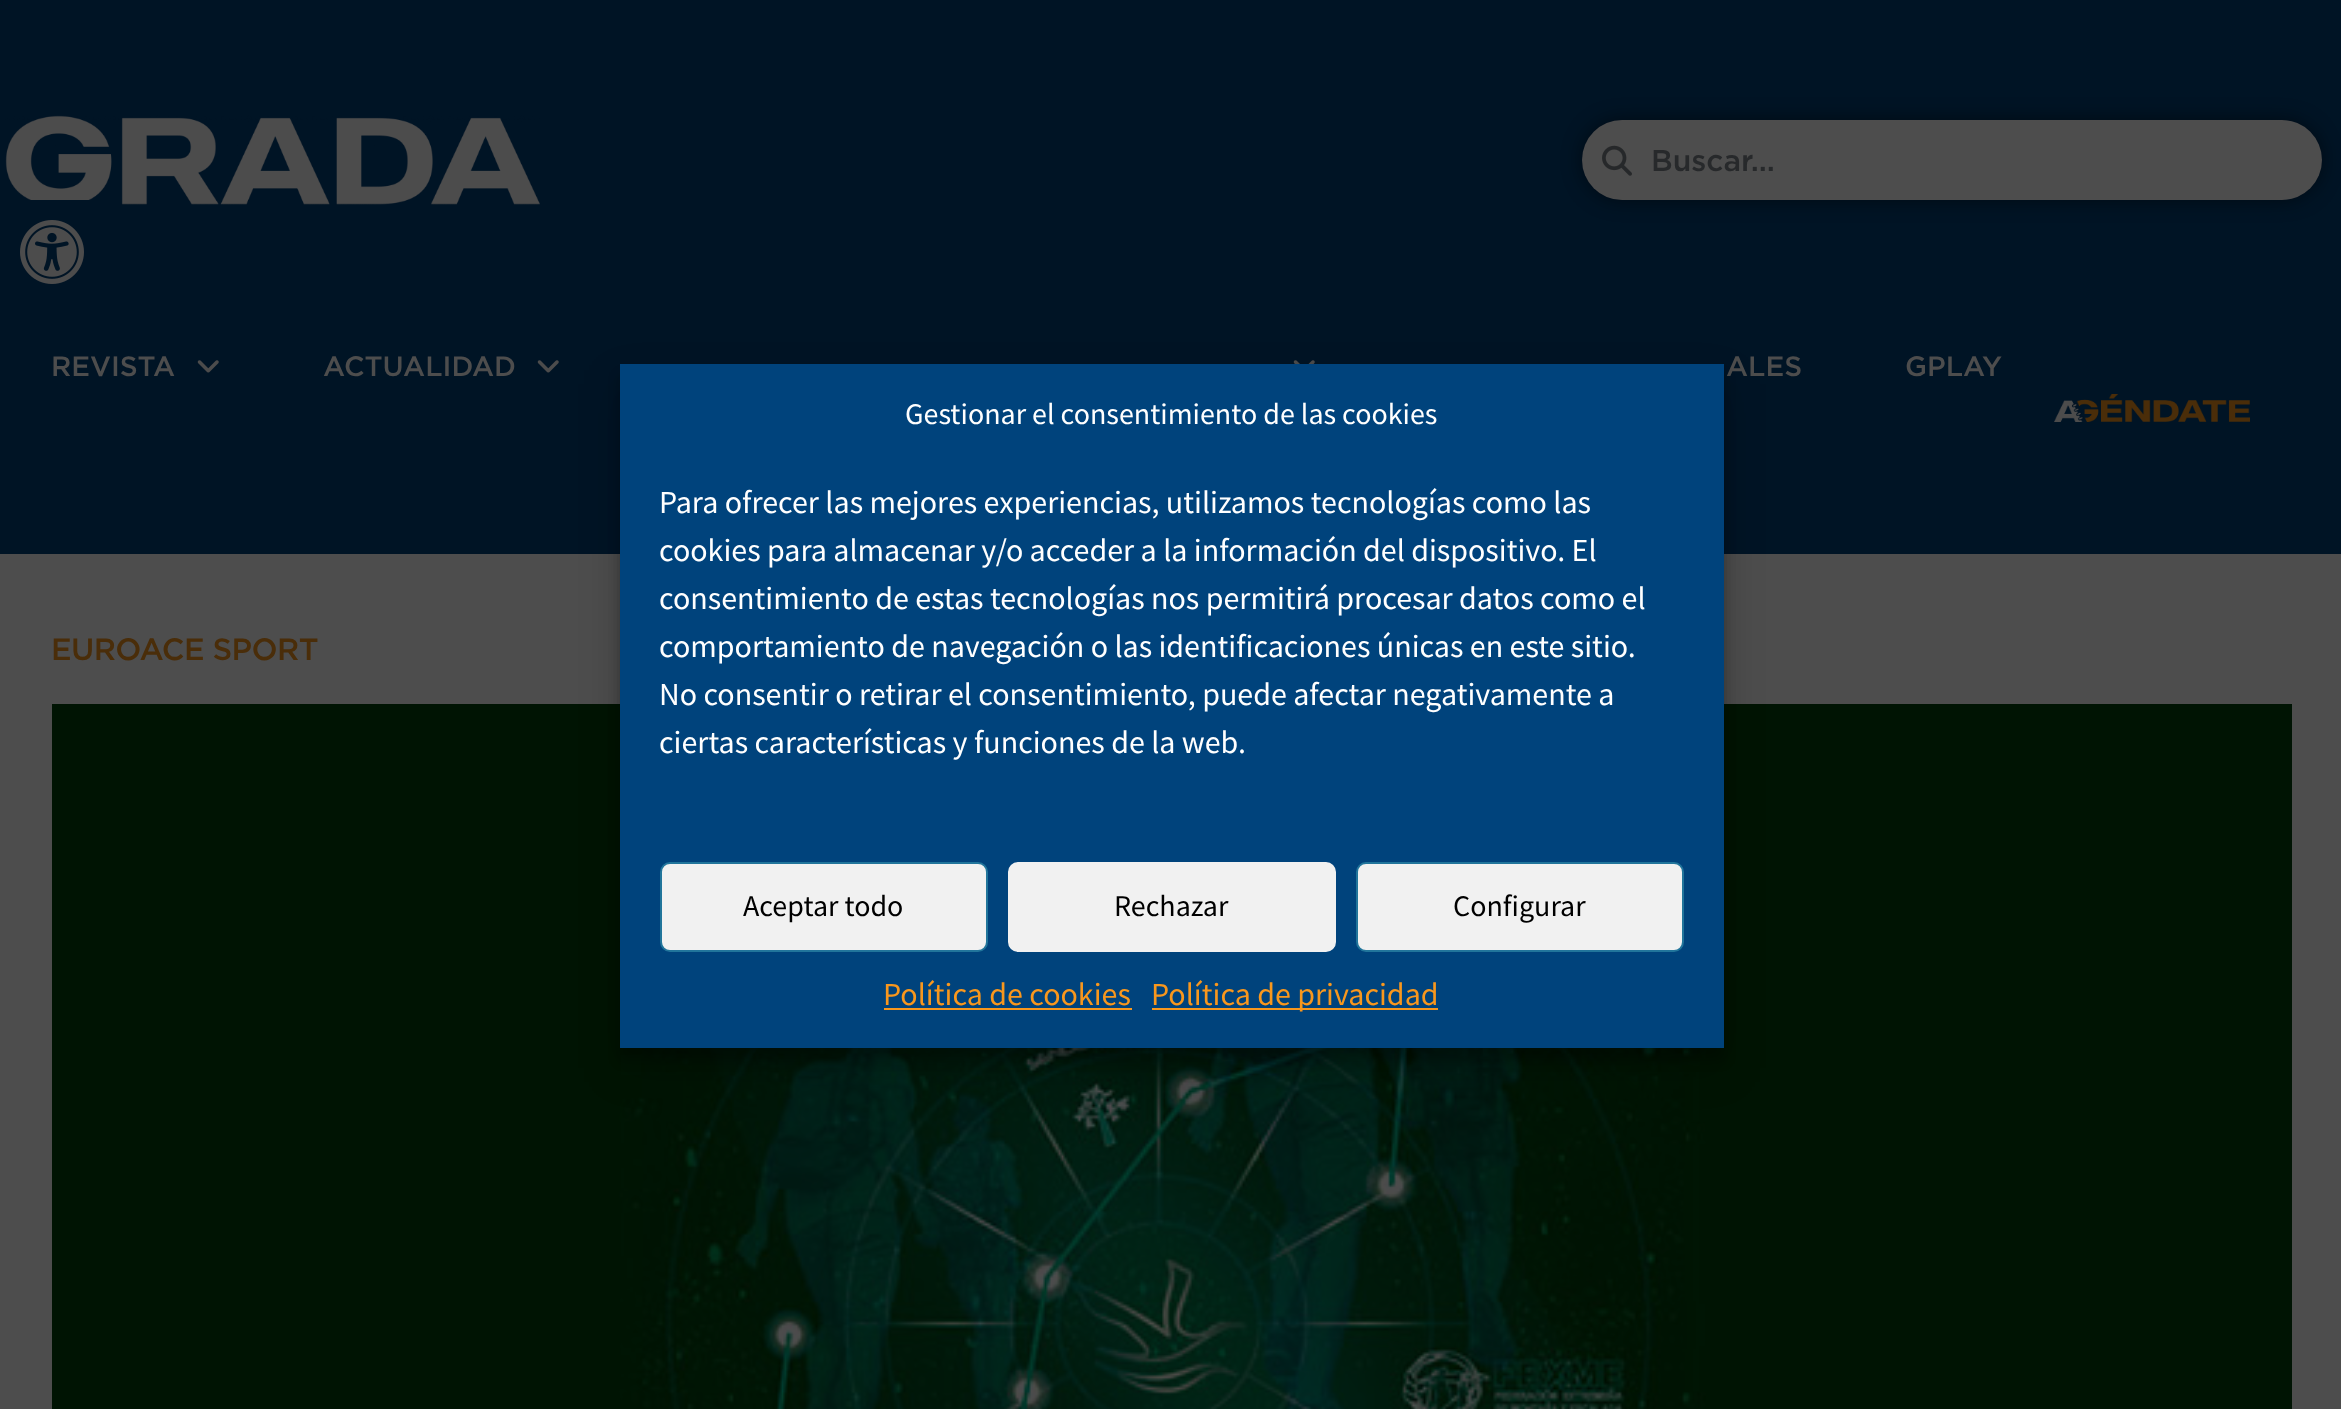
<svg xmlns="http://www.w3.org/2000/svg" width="2341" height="1409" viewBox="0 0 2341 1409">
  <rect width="100%" height="100%" fill="rgb(77,77,77)"/>
  <rect x="0" y="0" width="2341" height="554" fill="rgb(0,20,37)"/>
  <image x="5" y="115" width="535" height="90" href="pic1.png"/>
  <rect x="1582" y="120" width="740" height="80" rx="40" fill="rgba(0,0,0,0.5)" filter="blur(10px)"/>
  <rect x="1582" y="120" width="740" height="80" rx="40" fill="rgb(77,77,77)"/>
  <image x="1602" y="145" width="30" height="31" href="pic2.png"/>
  <text x="1651" y="171" font-family="Gotham" font-size="30" font-weight="500" fill="rgb(39,41,43)">Buscar...</text>
  <text x="51" y="376" font-family="Gotham" font-size="28" font-weight="500" fill="rgb(77,77,77)">REVISTA</text>
  <image x="197" y="360" width="22" height="13" href="pic3.png"/>
  <text x="323" y="376" font-family="Gotham" font-size="28" font-weight="500" fill="rgb(77,77,77)">ACTUALIDAD</text>
  <image x="537" y="360" width="22" height="13" href="pic3.png"/>
  <image x="1293" y="360" width="22" height="4" href="pic4.png"/>
  <g font-family="Gotham" font-size="28" font-weight="500" fill="rgb(77,77,77)">
    <text x="1726" y="376">ALES</text>
    <text x="1905" y="376">GPLAY</text>
  </g>
  <image x="2054" y="394" width="196" height="28" href="pic5.png"/>
  <rect x="31" y="200" width="58" height="5" fill="rgb(0,20,37)"/>
  <image x="20" y="220" width="64" height="64" href="pic6.png"/>
  <text x="51" y="660" font-family="Gotham" font-size="30.75" font-weight="500" letter-spacing="-0.6" fill="rgb(74,45,9)">EUROACE SPORT</text>
  <image x="52" y="704" width="2240" height="705" href="pic7.png"/>
  <rect x="620" y="376" width="1104" height="684" fill="rgba(0,0,0,0.23)" filter="blur(6px)"/>
  <rect x="620" y="384" width="1104" height="684" fill="rgba(0,0,0,0.19)" filter="blur(20px)"/>
  <rect x="620" y="364" width="1104" height="684" fill="rgb(0,67,124)"/>
  <text x="905" y="424" font-family="Source Sans Pro" font-size="30" fill="rgb(255,255,255)">Gestionar el consentimiento de las cookies</text>
  <g font-family="Source Sans Pro" font-size="32" fill="rgb(255,255,255)">
    <text>
      <tspan x="659" y="513">Para ofrecer las mejores experiencias, utilizamos tecnologías como las</tspan>
      <tspan x="659" y="561">cookies para almacenar y/o acceder a la información del dispositivo. El</tspan>
      <tspan x="659" y="609">consentimiento de estas tecnologías nos permitirá procesar datos como el</tspan>
      <tspan x="659" y="657">comportamiento de navegación o las identificaciones únicas en este sitio.</tspan>
      <tspan x="659" y="705">No consentir o retirar el consentimiento, puede afectar negativamente a</tspan>
      <tspan x="659" y="753">ciertas características y funciones de la web.</tspan>
    </text>
  </g>
  <rect x="661" y="863" width="326" height="88" rx="9" fill="rgb(241,241,241)" stroke="rgb(33,117,155)" stroke-width="2"/>
  <text x="743" y="916" font-family="Source Sans Pro" font-size="30" fill="rgb(0,0,0)">Aceptar todo</text>
  <rect x="1009" y="863" width="326" height="88" rx="9" fill="rgb(241,241,241)" stroke="rgb(241,241,241)" stroke-width="2"/>
  <text x="1114" y="916" font-family="Source Sans Pro" font-size="30" fill="rgb(0,0,0)">Rechazar</text>
  <rect x="1357" y="863" width="326" height="88" rx="9" fill="rgb(241,241,241)" stroke="rgb(33,117,155)" stroke-width="2"/>
  <text x="1453" y="916" font-family="Source Sans Pro" font-size="30" fill="rgb(0,0,0)">Configurar</text>
  <text x="883" y="1005" font-family="Source Sans Pro" font-size="32" fill="rgb(248,151,29)">Política de cookies</text>
  <rect x="884" y="1008" width="248" height="2" fill="rgb(248,151,29)"/>
  <rect x="1152" y="1008" width="286" height="2" fill="rgb(248,151,29)"/>
  <text x="1151" y="1005" font-family="Source Sans Pro" font-size="32" fill="rgb(248,151,29)">Política de privacidad</text>
</svg>
